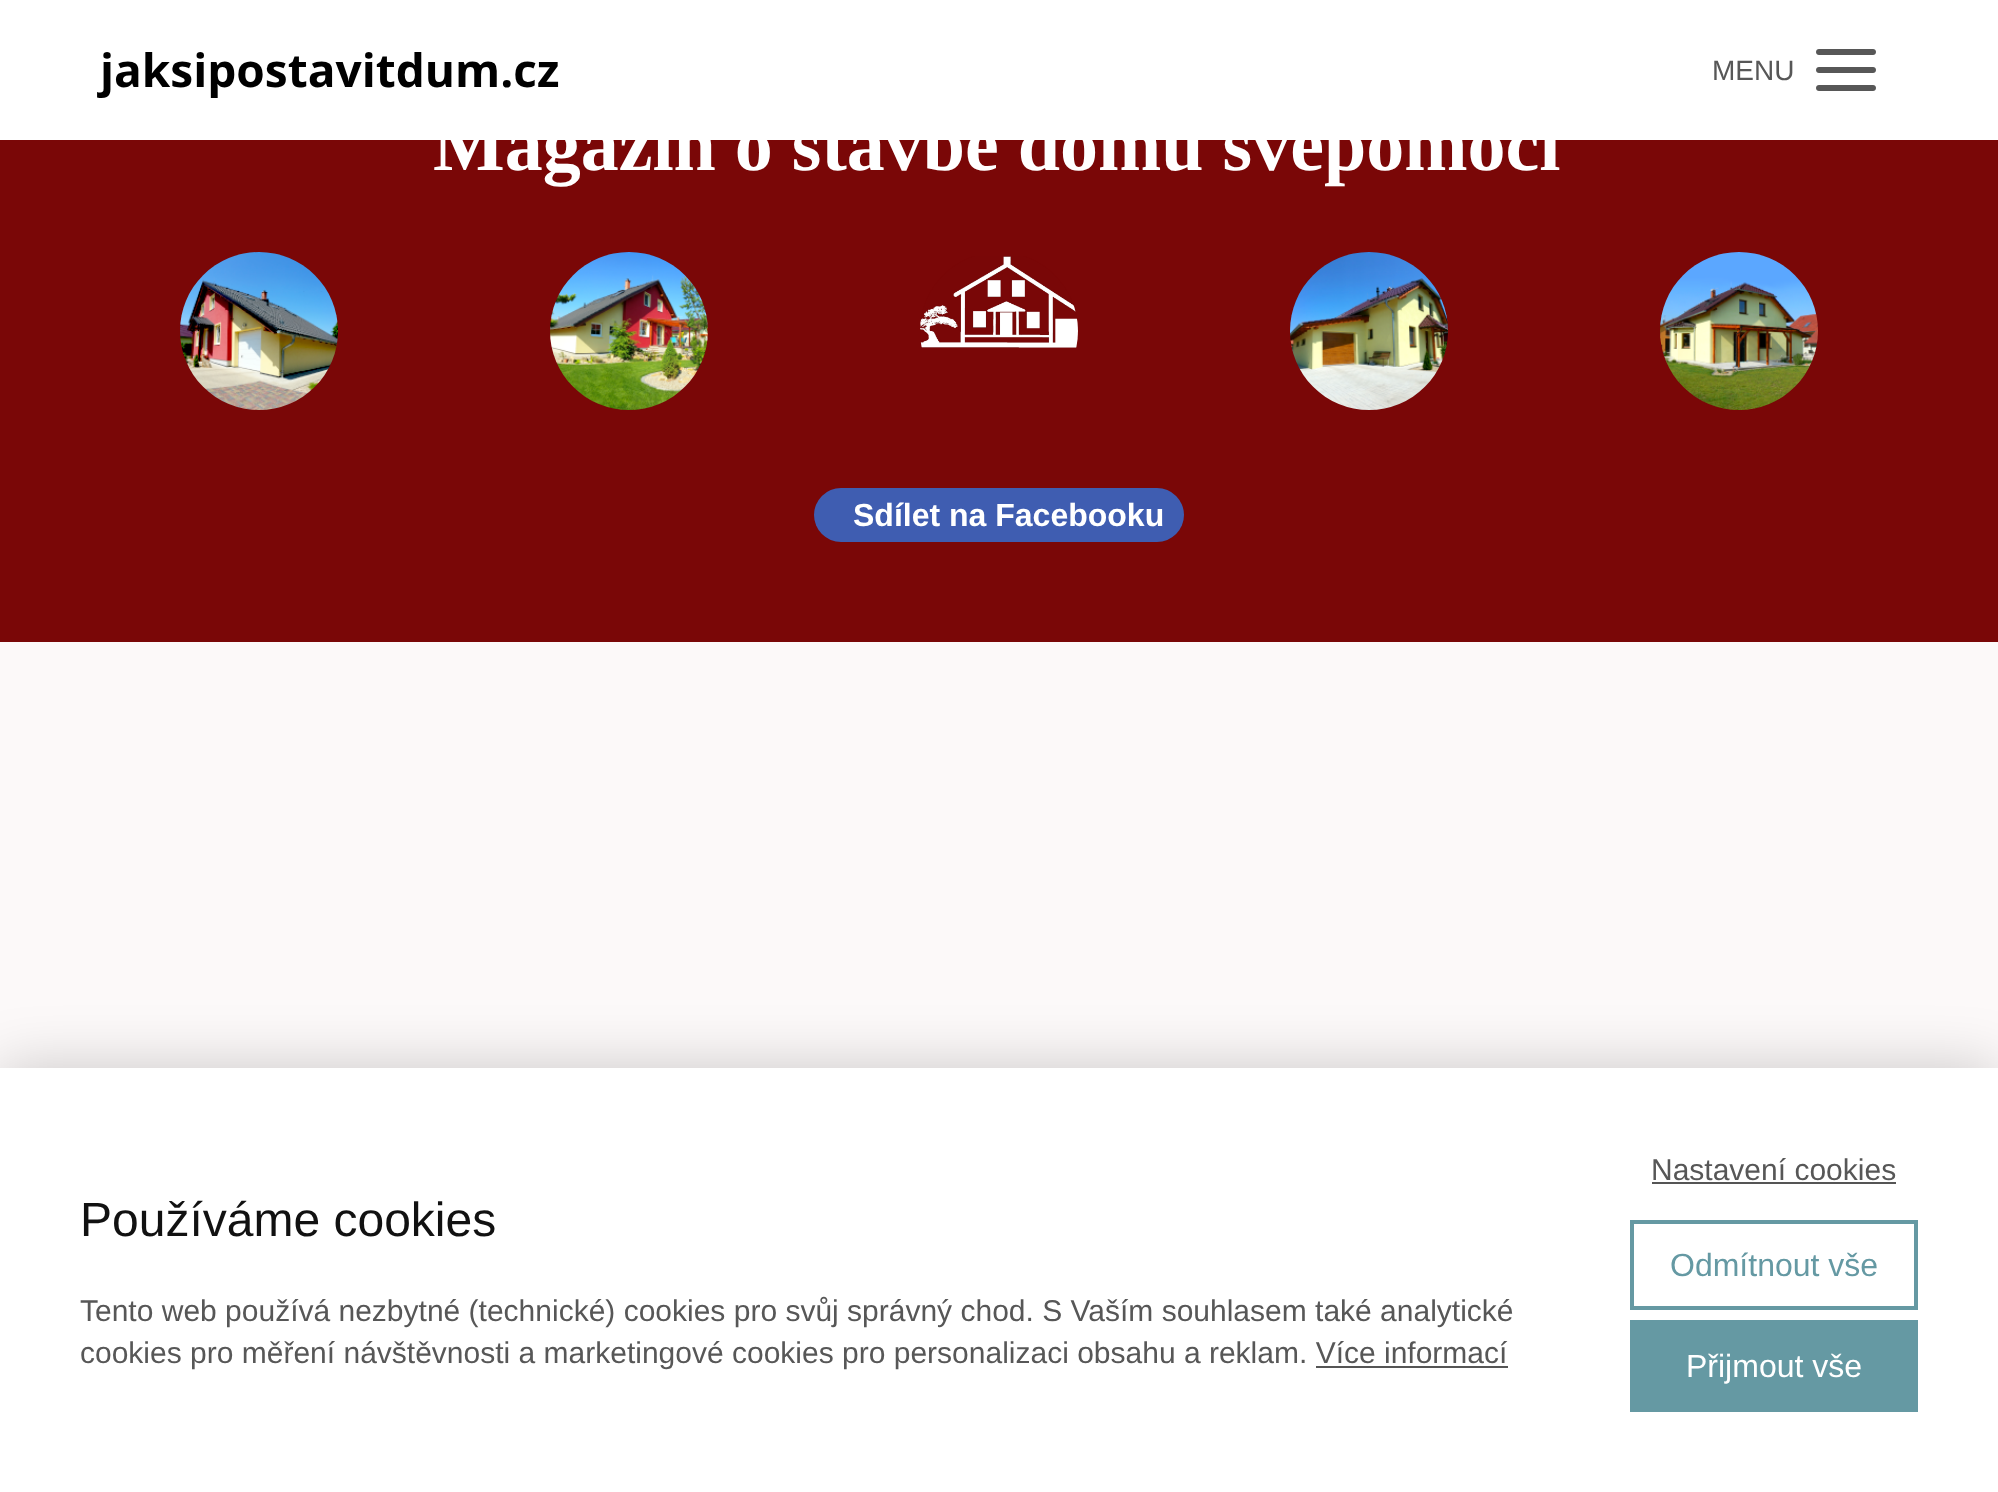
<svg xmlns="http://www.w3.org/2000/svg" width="1998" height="1492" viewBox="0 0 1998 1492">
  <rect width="100%" height="100%" fill="rgb(252,249,249)"/>
  <rect x="0" y="0" width="1998" height="140" fill="rgb(255,255,255)"/>
  <text x="100" y="87" font-family="Open Sans" font-size="46" font-weight="bold" fill="rgb(0,0,0)">jaksipostavitdum.cz</text>
  <text x="1712" y="80" font-family="Liberation Sans" font-size="28" fill="rgb(87,87,87)">MENU</text>
  <image x="1816" y="49" width="60" height="42" href="pic1.png"/>
  <rect x="0" y="140" width="1998" height="502" fill="rgb(122,7,7)"/>
  <text x="433" y="170" font-family="Tinos" font-size="76" font-weight="bold" fill="rgb(255,255,255)">Magazín o stavbě domu svépomocí</text>
  <image x="180" y="252" width="158" height="158" href="pic2.png"/>
  <image x="550" y="252" width="158" height="158" href="pic3.png"/>
  <image x="920" y="256" width="158" height="92" href="pic4.png"/>
  <image x="1290" y="252" width="158" height="158" href="pic5.png"/>
  <image x="1660" y="252" width="158" height="158" href="pic6.png"/>
  <rect x="814" y="488" width="370" height="54" rx="27" fill="rgb(63,93,177)"/>
  <text x="853" y="526" font-family="Liberation Sans" font-size="32" font-weight="bold" fill="rgb(255,255,255)">Sdílet na Facebooku</text>
  <rect x="0" y="1068" width="1998" height="424" fill="rgba(0,0,0,0.2)" filter="blur(30px)"/>
  <rect x="0" y="1068" width="1998" height="424" fill="rgb(255,255,255)"/>
  <text x="80" y="1236" font-family="Liberation Sans" font-size="48" fill="rgb(17,17,17)">Používáme cookies</text>
  <g font-family="Liberation Sans" font-size="30" fill="rgb(87,87,87)">
    <text>
      <tspan x="80" y="1321">Tento web používá nezbytné (technické) cookies pro svůj správný chod. S Vaším souhlasem také analytické</tspan>
      <tspan x="80" y="1363">cookies pro měření návštěvnosti a marketingové cookies pro personalizaci obsahu a reklam. Více informací</tspan>
    </text>
  </g>
  <rect x="1316" y="1366" width="192" height="2" fill="rgb(85,85,85)"/>
  <text x="1651" y="1180" font-family="Liberation Sans" font-size="30" fill="rgb(87,87,87)">Nastavení cookies</text>
  <rect x="1652" y="1182" width="244" height="2" fill="rgb(85,85,85)"/>
  <rect x="1632" y="1222" width="284" height="86" fill="none" stroke="rgb(101,153,163)" stroke-width="4"/>
  <text x="1670" y="1276" font-family="Liberation Sans" font-size="32" fill="rgb(101,153,163)">Odmítnout vše</text>
  <rect x="1630" y="1320" width="288" height="92" fill="rgb(101,153,163)"/>
  <text x="1686" y="1377" font-family="Liberation Sans" font-size="32" fill="rgb(255,255,255)">Přijmout vše</text>
</svg>
